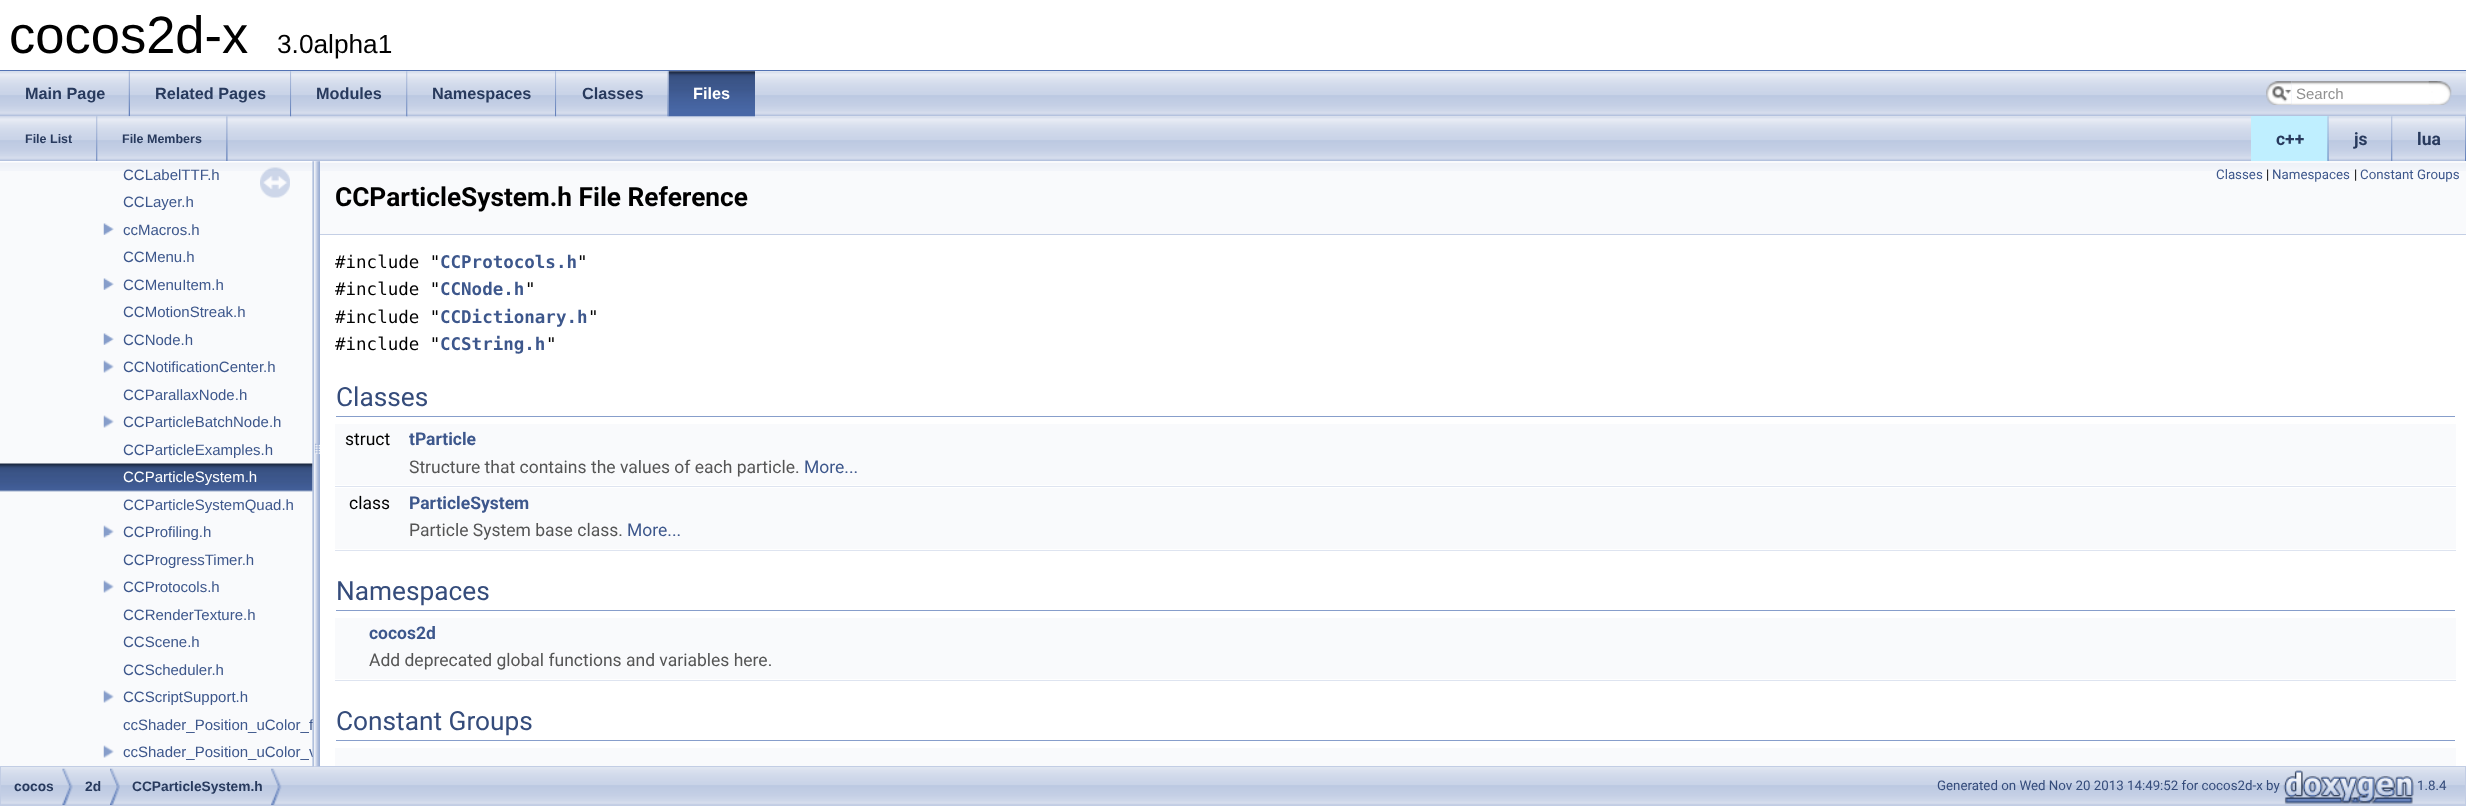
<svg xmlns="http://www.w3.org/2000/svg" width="2466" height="806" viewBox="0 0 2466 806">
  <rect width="100%" height="100%" fill="rgb(255,255,255)"/>
  <rect x="0" y="70" width="2466" height="1" fill="rgb(83,115,180)"/>
  <text x="9" y="53" font-family="Liberation Sans" font-size="52.5" fill="rgb(0,0,0)">cocos2d-x</text>
  <text x="277" y="53" font-family="Liberation Sans" font-size="26.25" fill="rgb(0,0,0)">3.0alpha1</text>
  <image x="0" y="71" width="2466" height="46" href="pic1.png"/>
  <image x="0" y="116" width="2466" height="46" href="pic17.png"/>
  <image x="0" y="71" width="130" height="46" href="pic2.png"/>
  <image x="128" y="71" width="2" height="46" href="pic3.png"/>
  <text x="25" y="99" font-family="Liberation Sans" font-size="16.25" font-weight="bold" fill="rgb(40,58,93)">Main Page</text>
  <image x="130" y="71" width="161" height="46" href="pic4.png"/>
  <image x="290" y="71" width="2" height="46" href="pic5.png"/>
  <text x="155" y="99" font-family="Liberation Sans" font-size="16.25" font-weight="bold" fill="rgb(40,58,93)">Related Pages</text>
  <image x="291" y="71" width="117" height="46" href="pic6.png"/>
  <image x="406" y="71" width="2" height="46" href="pic7.png"/>
  <text x="316" y="99" font-family="Liberation Sans" font-size="16.25" font-weight="bold" fill="rgb(40,58,93)">Modules</text>
  <image x="407" y="71" width="149" height="46" href="pic8.png"/>
  <image x="555" y="71" width="2" height="46" href="pic5.png"/>
  <text x="432" y="99" font-family="Liberation Sans" font-size="16.25" font-weight="bold" fill="rgb(40,58,93)">Namespaces</text>
  <image x="556" y="71" width="113" height="46" href="pic9.png"/>
  <image x="667" y="71" width="2" height="46" href="pic10.png"/>
  <text x="582" y="99" font-family="Liberation Sans" font-size="16.25" font-weight="bold" fill="rgb(40,58,93)">Classes</text>
  <image x="668" y="71" width="87" height="46" href="pic11.png"/>
  <image x="668" y="71" width="87" height="46" href="pic12.png"/>
  <text x="693" y="99" font-family="Liberation Sans" font-size="16.25" font-weight="bold" fill="rgb(255,255,255)">Files</text>
  <image x="2266" y="81" width="26" height="24" href="pic13.png"/>
  <image x="2272" y="86" width="20" height="16" href="pic14.png"/>
  <image x="2291" y="81" width="147" height="24" href="pic15.png"/>
  <text x="2296" y="99" font-family="Liberation Sans" font-size="15" fill="rgb(144,144,144)">Search</text>
  <image x="2428" y="81" width="24" height="24" href="pic16.png"/>
  <image x="96" y="116" width="2" height="45" href="pic18.png"/>
  <text x="25" y="143" font-family="Liberation Sans" font-size="12.5" font-weight="bold" fill="rgb(40,58,93)">File List</text>
  <image x="97" y="116" width="131" height="45" href="pic19.png"/>
  <image x="226" y="116" width="2" height="45" href="pic20.png"/>
  <text x="122" y="143" font-family="Liberation Sans" font-size="12.5" font-weight="bold" fill="rgb(40,58,93)">File Members</text>
  <rect x="2251" y="116" width="78" height="45" fill="rgb(191,239,255)"/>
  <image x="2327" y="116" width="2" height="45" href="pic21.png"/>
  <text x="2276" y="145" font-family="Roboto" font-size="17.5" font-weight="bold" fill="rgb(40,58,93)">c++</text>
  <image x="2328" y="116" width="65" height="45" href="pic22.png"/>
  <image x="2391" y="116" width="2" height="45" href="pic23.png"/>
  <text x="2354" y="145" font-family="Roboto" font-size="17.5" font-weight="bold" fill="rgb(40,58,93)">js</text>
  <image x="2392" y="116" width="74" height="45" href="pic24.png"/>
  <image x="2465" y="116" width="1" height="45" href="pic25.png"/>
  <text x="2417" y="145" font-family="Roboto" font-size="17.5" font-weight="bold" fill="rgb(40,58,93)">lua</text>
  <rect x="0" y="161" width="313" height="605" fill="rgb(249,250,252)"/>
  <image x="0" y="161" width="313" height="10" href="pic26.png"/>
  <image x="260" y="167" width="30" height="31" href="pic27.png"/>
  <g font-family="Liberation Sans" font-size="15" fill="rgb(61,87,140)">
    <text>
      <tspan x="123" y="180">CCLabelTTF.h</tspan>
      <tspan x="123" y="207">CCLayer.h</tspan>
    </text>
  </g>
  <image x="103" y="223" width="11" height="12" href="pic28.png"/>
  <g font-family="Liberation Sans" font-size="15" fill="rgb(61,87,140)">
    <text>
      <tspan x="123" y="235">ccMacros.h</tspan>
      <tspan x="123" y="262">CCMenu.h</tspan>
    </text>
  </g>
  <image x="103" y="278" width="11" height="12" href="pic28.png"/>
  <g font-family="Liberation Sans" font-size="15" fill="rgb(61,87,140)">
    <text>
      <tspan x="123" y="290">CCMenuItem.h</tspan>
      <tspan x="123" y="317">CCMotionStreak.h</tspan>
    </text>
  </g>
  <image x="103" y="333" width="11" height="12" href="pic28.png"/>
  <text x="123" y="345" font-family="Liberation Sans" font-size="15" fill="rgb(61,87,140)">CCNode.h</text>
  <image x="103" y="360" width="11" height="13" href="pic29.png"/>
  <g font-family="Liberation Sans" font-size="15" fill="rgb(61,87,140)">
    <text>
      <tspan x="123" y="372">CCNotificationCenter.h</tspan>
      <tspan x="123" y="400">CCParallaxNode.h</tspan>
    </text>
  </g>
  <image x="103" y="415" width="11" height="13" href="pic29.png"/>
  <g font-family="Liberation Sans" font-size="15" fill="rgb(61,87,140)">
    <text>
      <tspan x="123" y="427">CCParticleBatchNode.h</tspan>
      <tspan x="123" y="455">CCParticleExamples.h</tspan>
    </text>
  </g>
  <image x="0" y="463" width="313" height="29" href="pic30.png"/>
  <text x="123" y="482" font-family="Liberation Sans" font-size="15" fill="rgb(255,255,255)">CCParticleSystem.h</text>
  <text x="123" y="510" font-family="Liberation Sans" font-size="15" fill="rgb(61,87,140)">CCParticleSystemQuad.h</text>
  <image x="103" y="525" width="11" height="13" href="pic31.png"/>
  <g font-family="Liberation Sans" font-size="15" fill="rgb(61,87,140)">
    <text>
      <tspan x="123" y="537">CCProfiling.h</tspan>
      <tspan x="123" y="565">CCProgressTimer.h</tspan>
    </text>
  </g>
  <image x="103" y="580" width="11" height="13" href="pic29.png"/>
  <g font-family="Liberation Sans" font-size="15" fill="rgb(61,87,140)">
    <text>
      <tspan x="123" y="592">CCProtocols.h</tspan>
      <tspan x="123" y="620">CCRenderTexture.h</tspan>
      <tspan x="123" y="647">CCScene.h</tspan>
      <tspan x="123" y="675">CCScheduler.h</tspan>
    </text>
  </g>
  <image x="103" y="690" width="11" height="13" href="pic29.png"/>
  <g font-family="Liberation Sans" font-size="15" fill="rgb(61,87,140)">
    <text>
      <tspan x="123" y="702">CCScriptSupport.h</tspan>
      <tspan x="123" y="730">ccShader_Position_uColor_f</tspan>
    </text>
  </g>
  <image x="103" y="745" width="11" height="13" href="pic29.png"/>
  <text x="123" y="757" font-family="Liberation Sans" font-size="15" fill="rgb(61,87,140)">ccShader_Position_uColor_v</text>
  <image x="1" y="767" width="2464" height="38" href="pic34.png"/>
  <rect x="0.5" y="766.5" width="2465" height="39" fill="none" stroke="rgb(194,205,228)"/>
  <image x="312" y="161" width="8" height="606" href="pic32.png"/>
  <rect x="320" y="161" width="2146" height="73" fill="rgb(249,250,252)"/>
  <image x="320" y="163" width="2146" height="8" href="pic33.png"/>
  <rect x="320" y="234" width="2146" height="1" fill="rgb(196,207,229)"/>
  <text x="2216" y="179" font-family="Roboto" font-size="13.3" fill="rgb(61,87,140)">Classes</text>
  <text x="2266" y="179" font-family="Roboto" font-size="13.3" fill="rgb(0,0,0)">|</text>
  <text x="2272" y="179" font-family="Roboto" font-size="13.3" fill="rgb(61,87,140)">Namespaces</text>
  <text x="2354" y="179" font-family="Roboto" font-size="13.3" fill="rgb(0,0,0)">|</text>
  <text x="2360" y="179" font-family="Roboto" font-size="13.3" fill="rgb(61,87,140)">Constant Groups</text>
  <text x="335" y="206" font-family="Roboto" font-size="26.25" font-weight="bold" fill="rgb(0,0,0)">CCParticleSystem.h File Reference</text>
  <text x="335" y="268" font-family="DejaVu Sans Mono" font-size="17.5" fill="rgb(0,0,0)">#include "</text>
  <text x="440" y="268" font-family="DejaVu Sans Mono" font-size="17.5" font-weight="bold" fill="rgb(61,87,140)">CCProtocols.h</text>
  <g font-family="DejaVu Sans Mono" font-size="17.5" fill="rgb(0,0,0)">
    <text x="577" y="268">"</text>
    <text x="335" y="295">#include "</text>
  </g>
  <text x="440" y="295" font-family="DejaVu Sans Mono" font-size="17.5" font-weight="bold" fill="rgb(61,87,140)">CCNode.h</text>
  <g font-family="DejaVu Sans Mono" font-size="17.5" fill="rgb(0,0,0)">
    <text x="525" y="295">"</text>
    <text x="335" y="323">#include "</text>
  </g>
  <text x="440" y="323" font-family="DejaVu Sans Mono" font-size="17.5" font-weight="bold" fill="rgb(61,87,140)">CCDictionary.h</text>
  <g font-family="DejaVu Sans Mono" font-size="17.5" fill="rgb(0,0,0)">
    <text x="588" y="323">"</text>
    <text x="335" y="350">#include "</text>
  </g>
  <text x="440" y="350" font-family="DejaVu Sans Mono" font-size="17.5" font-weight="bold" fill="rgb(61,87,140)">CCString.h</text>
  <text x="546" y="350" font-family="DejaVu Sans Mono" font-size="17.5" fill="rgb(0,0,0)">"</text>
  <rect x="336" y="416" width="2119" height="1" fill="rgb(135,158,203)"/>
  <text x="336" y="406" font-family="Roboto" font-size="26.25" fill="rgb(53,76,123)">Classes</text>
  <rect x="335" y="424" width="2121" height="29" fill="rgb(249,250,252)"/>
  <text x="345" y="445" font-family="Roboto" font-size="17.5" fill="rgb(0,0,0)">struct</text>
  <text x="409" y="445" font-family="Roboto" font-size="17.5" font-weight="bold" fill="rgb(61,87,140)">tParticle</text>
  <rect x="335" y="453" width="2121" height="32" fill="rgb(249,250,252)"/>
  <text x="409" y="473" font-family="Roboto" font-size="17.5" fill="rgb(85,85,85)">Structure that contains the values of each particle.</text>
  <text x="804" y="473" font-family="Roboto" font-size="17.5" fill="rgb(61,87,140)">More...</text>
  <rect x="335" y="486" width="2121" height="1" fill="rgb(222,228,240)"/>
  <rect x="335" y="488" width="2121" height="28" fill="rgb(249,250,252)"/>
  <text x="349" y="509" font-family="Roboto" font-size="17.5" fill="rgb(0,0,0)">class</text>
  <text x="409" y="509" font-family="Roboto" font-size="17.5" font-weight="bold" fill="rgb(61,87,140)">ParticleSystem</text>
  <rect x="335" y="516" width="2121" height="33" fill="rgb(249,250,252)"/>
  <text x="409" y="536" font-family="Roboto" font-size="17.5" fill="rgb(85,85,85)">Particle System base class.</text>
  <text x="627" y="536" font-family="Roboto" font-size="17.5" fill="rgb(61,87,140)">More...</text>
  <rect x="335" y="550" width="2121" height="1" fill="rgb(222,228,240)"/>
  <rect x="336" y="610" width="2119" height="1" fill="rgb(135,158,203)"/>
  <text x="336" y="600" font-family="Roboto" font-size="26.25" fill="rgb(53,76,123)">Namespaces</text>
  <rect x="335" y="618" width="2121" height="28" fill="rgb(249,250,252)"/>
  <text x="369" y="639" font-family="Roboto" font-size="17.5" font-weight="bold" fill="rgb(61,87,140)">cocos2d</text>
  <rect x="335" y="646" width="2121" height="33" fill="rgb(249,250,252)"/>
  <text x="369" y="666" font-family="Roboto" font-size="17.5" fill="rgb(85,85,85)">Add deprecated global functions and variables here.</text>
  <rect x="335" y="680" width="2121" height="1" fill="rgb(222,228,240)"/>
  <rect x="336" y="740" width="2119" height="1" fill="rgb(135,158,203)"/>
  <text x="336" y="730" font-family="Roboto" font-size="26.25" fill="rgb(53,76,123)">Constant Groups</text>
  <rect x="335" y="748" width="2121" height="18" fill="rgb(249,250,252)"/>
  <image x="62" y="768" width="11" height="37" href="pic35.png"/>
  <text x="14" y="791" font-family="Liberation Sans" font-size="13.75" font-weight="bold" fill="rgb(40,58,93)">cocos</text>
  <image x="110" y="768" width="10" height="37" href="pic36.png"/>
  <text x="85" y="791" font-family="Liberation Sans" font-size="13.75" font-weight="bold" fill="rgb(40,58,93)">2d</text>
  <image x="271" y="768" width="11" height="37" href="pic37.png"/>
  <text x="132" y="791" font-family="Liberation Sans" font-size="13.75" font-weight="bold" fill="rgb(40,58,93)">CCParticleSystem.h</text>
  <text x="1937" y="790" font-family="Roboto" font-size="13.3" fill="rgb(53,76,123)">Generated on Wed Nov 20 2013 14:49:52 for cocos2d-x by</text>
  <image x="2283" y="770" width="131" height="34" href="pic38.png"/>
  <text x="2417" y="790" font-family="Roboto" font-size="13.3" fill="rgb(53,76,123)">1.8.4</text>
</svg>
